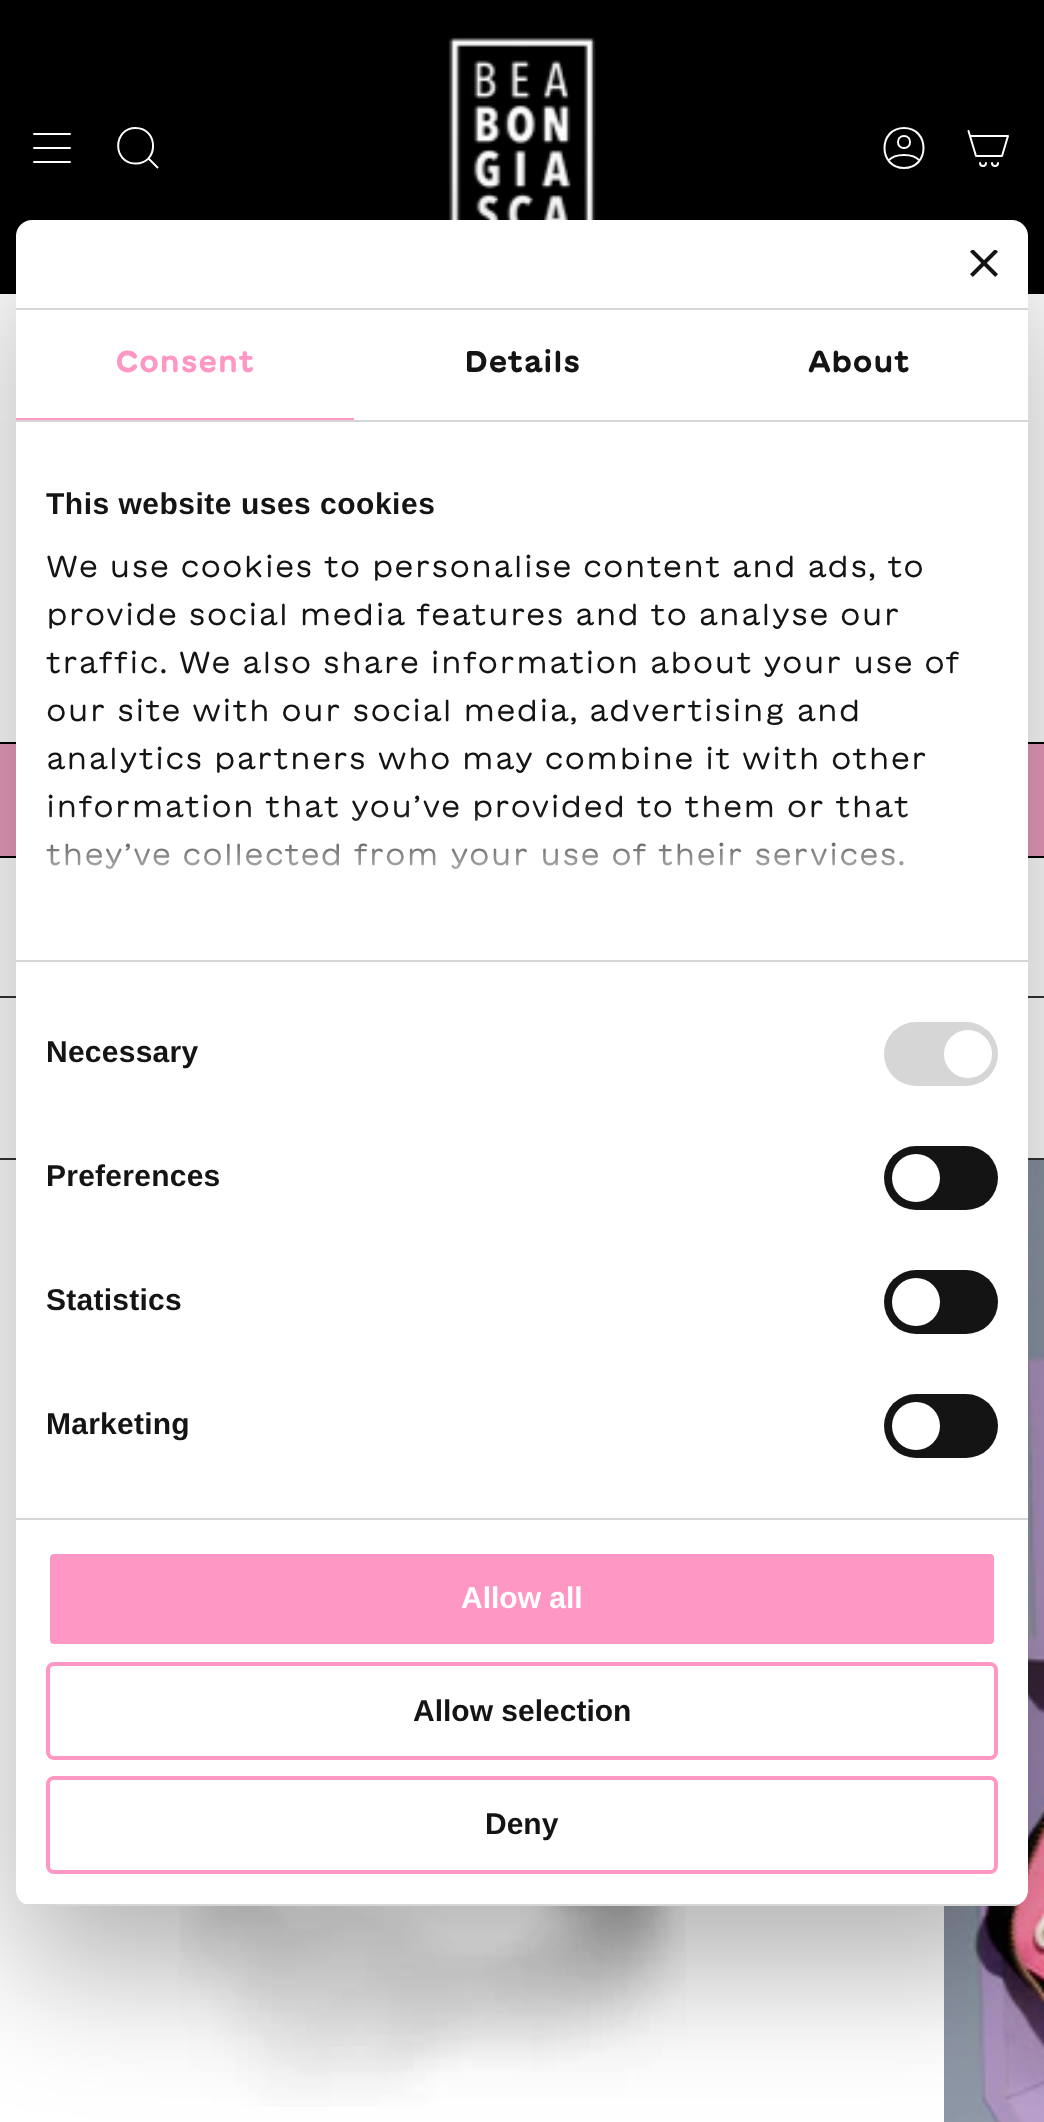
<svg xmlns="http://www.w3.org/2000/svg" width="1044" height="2122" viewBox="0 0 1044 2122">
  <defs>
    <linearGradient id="g1" gradientUnits="userSpaceOnUse" x1="509" y1="959" x2="509" y2="809"><stop offset="0" stop-color="rgb(255,255,255)"/><stop offset="0.5" stop-color="rgb(255,255,255)" stop-opacity="0.8"/><stop offset="1" stop-color="rgb(255,255,255)" stop-opacity="0"/></linearGradient>
    <clipPath id="clip1"><rect x="16" y="220" width="1012" height="1686" rx="16"/></clipPath>
  </defs>
  <rect width="100%" height="100%" fill="rgb(255,255,255)"/>
  <rect x="0" y="0" width="1044" height="294" fill="rgb(0,0,0)"/>
  <path d="M34 134H70M34 148H70M34 162H70" fill="none" stroke="rgb(255,255,255)" stroke-width="2" stroke-linecap="round" stroke-linejoin="round"/>
  <path d="M135.5 128C159 128 159 164.5 135 163.5C112 162.5 113 128 135.5 128ZM148 158L158 168" fill="none" stroke="rgb(255,255,255)" stroke-width="2"/>
  <image x="448" y="37" width="148" height="183" href="pic1.png"/>
  <path d="M904 128C878 128 878 168 904 168C930 168 930 128 904 128ZM888.5 160.5C894.5 153 913.5 153 919.5 160.5M904 148C912 148 912 136 904 136C896 136 896 148 904 148Z" fill="none" stroke="rgb(255,255,255)" stroke-width="2" stroke-linecap="round" stroke-linejoin="round"/>
  <path d="M970 136H1008L1002 156H976ZM970 136L968.5 131M986 163C986 167 980 167 980 163M998 163C998 167 992 167 992 163" fill="none" stroke="rgb(255,255,255)" stroke-width="2" stroke-linecap="round" stroke-linejoin="round"/>
  <rect x="0" y="744" width="1044" height="112" fill="rgb(234,157,189)"/>
  <rect x="0" y="742" width="1044" height="2" fill="rgb(0,0,0)"/>
  <rect x="0" y="856" width="1044" height="2" fill="rgb(0,0,0)"/>
  <rect x="0" y="996" width="1044" height="2" fill="rgb(52,52,52)"/>
  <rect x="0" y="1158" width="1044" height="2" fill="rgb(52,52,52)"/>
  <image x="179" y="1906" width="507" height="201" href="pic2.png"/>
  <image x="944" y="1160" width="100" height="962" href="pic3.png"/>
  <rect x="16" y="284" width="1012" height="1686" rx="16" fill="rgba(0,0,0,0.3)" filter="blur(68px)"/>
  <rect x="16" y="220" width="1012" height="1686" rx="16" fill="rgb(255,255,255)"/>
  <rect x="16" y="308" width="1012" height="2" fill="rgb(214,214,214)"/>
  <image x="970" y="250" width="28" height="27" href="pic4.png"/>
  <rect x="16" y="420" width="1012" height="2" fill="rgb(214,214,214)"/>
  <rect x="16" y="418" width="338" height="2" fill="rgb(255,151,197)"/>
  <text x="115" y="372" font-family="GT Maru" font-size="30" font-weight="bold" letter-spacing="0.25" fill="rgb(255,151,197)">Consent</text>
  <g font-family="GT Maru" font-size="30" font-weight="bold" letter-spacing="0.25" fill="rgb(20,20,20)">
    <text x="464" y="372">Details</text>
    <text x="808" y="372">About</text>
  </g>
  <rect x="16" y="960" width="1012" height="2" fill="rgb(214,214,214)"/>
  <text x="46" y="514" font-family="Liberation Sans" font-size="30" font-weight="bold" letter-spacing="0.5" fill="rgb(20,20,20)">This website uses cookies</text>
  <g font-family="GT Maru" font-size="30" letter-spacing="1" fill="rgb(20,20,20)">
    <text>
      <tspan x="46" y="577">We use cookies to personalise content and ads, to</tspan>
      <tspan x="46" y="625">provide social media features and to analyse our</tspan>
      <tspan x="46" y="673">traffic. We also share information about your use of</tspan>
      <tspan x="46" y="721">our site with our social media, advertising and</tspan>
      <tspan x="46" y="769">analytics partners who may combine it with other</tspan>
      <tspan x="46" y="817">information that you’ve provided to them or that</tspan>
      <tspan x="46" y="865">they’ve collected from your use of their services.</tspan>
    </text>
  </g>
  <rect x="46" y="811" width="862" height="58" fill="url(#g1)"/>
  <rect x="16" y="1518" width="1012" height="2" fill="rgb(214,214,214)"/>
  <text x="46" y="1062" font-family="Liberation Sans" font-size="30" font-weight="bold" letter-spacing="0.25" fill="rgb(20,20,20)">Necessary</text>
  <rect x="884" y="1022" width="114" height="64" rx="32" fill="rgb(214,214,214)"/>
  <circle cx="968" cy="1054" r="24" fill="rgb(255,255,255)"/>
  <text x="46" y="1186" font-family="Liberation Sans" font-size="30" font-weight="bold" letter-spacing="0.25" fill="rgb(20,20,20)">Preferences</text>
  <rect x="884" y="1146" width="114" height="64" rx="32" fill="rgb(20,20,20)"/>
  <circle cx="916" cy="1178" r="24" fill="rgb(255,255,255)"/>
  <text x="46" y="1310" font-family="Liberation Sans" font-size="30" font-weight="bold" letter-spacing="0.25" fill="rgb(20,20,20)">Statistics</text>
  <rect x="884" y="1270" width="114" height="64" rx="32" fill="rgb(20,20,20)"/>
  <circle cx="916" cy="1302" r="24" fill="rgb(255,255,255)"/>
  <text x="46" y="1434" font-family="Liberation Sans" font-size="30" font-weight="bold" letter-spacing="0.25" fill="rgb(20,20,20)">Marketing</text>
  <rect x="884" y="1394" width="114" height="64" rx="32" fill="rgb(20,20,20)"/>
  <circle cx="916" cy="1426" r="24" fill="rgb(255,255,255)"/>
  <g clip-path="url(#clip1)">
    <rect x="16" y="1904" width="1012" height="2" fill="rgb(214,214,214)"/>
  </g>
  <rect x="48" y="1552" width="948" height="94" rx="6" fill="rgb(255,151,197)" stroke="rgb(255,255,255)" stroke-width="4"/>
  <text x="461" y="1608" font-family="Liberation Sans" font-size="30" font-weight="bold" fill="rgb(255,255,255)">Allow all</text>
  <rect x="48" y="1664" width="948" height="94" rx="6" fill="none" stroke="rgb(255,151,197)" stroke-width="4"/>
  <text x="413" y="1721" font-family="Liberation Sans" font-size="30" font-weight="bold" fill="rgb(20,20,20)">Allow selection</text>
  <rect x="48" y="1778" width="948" height="94" rx="6" fill="none" stroke="rgb(255,151,197)" stroke-width="4"/>
  <text x="485" y="1834" font-family="Liberation Sans" font-size="30" font-weight="bold" fill="rgb(20,20,20)">Deny</text>
</svg>
